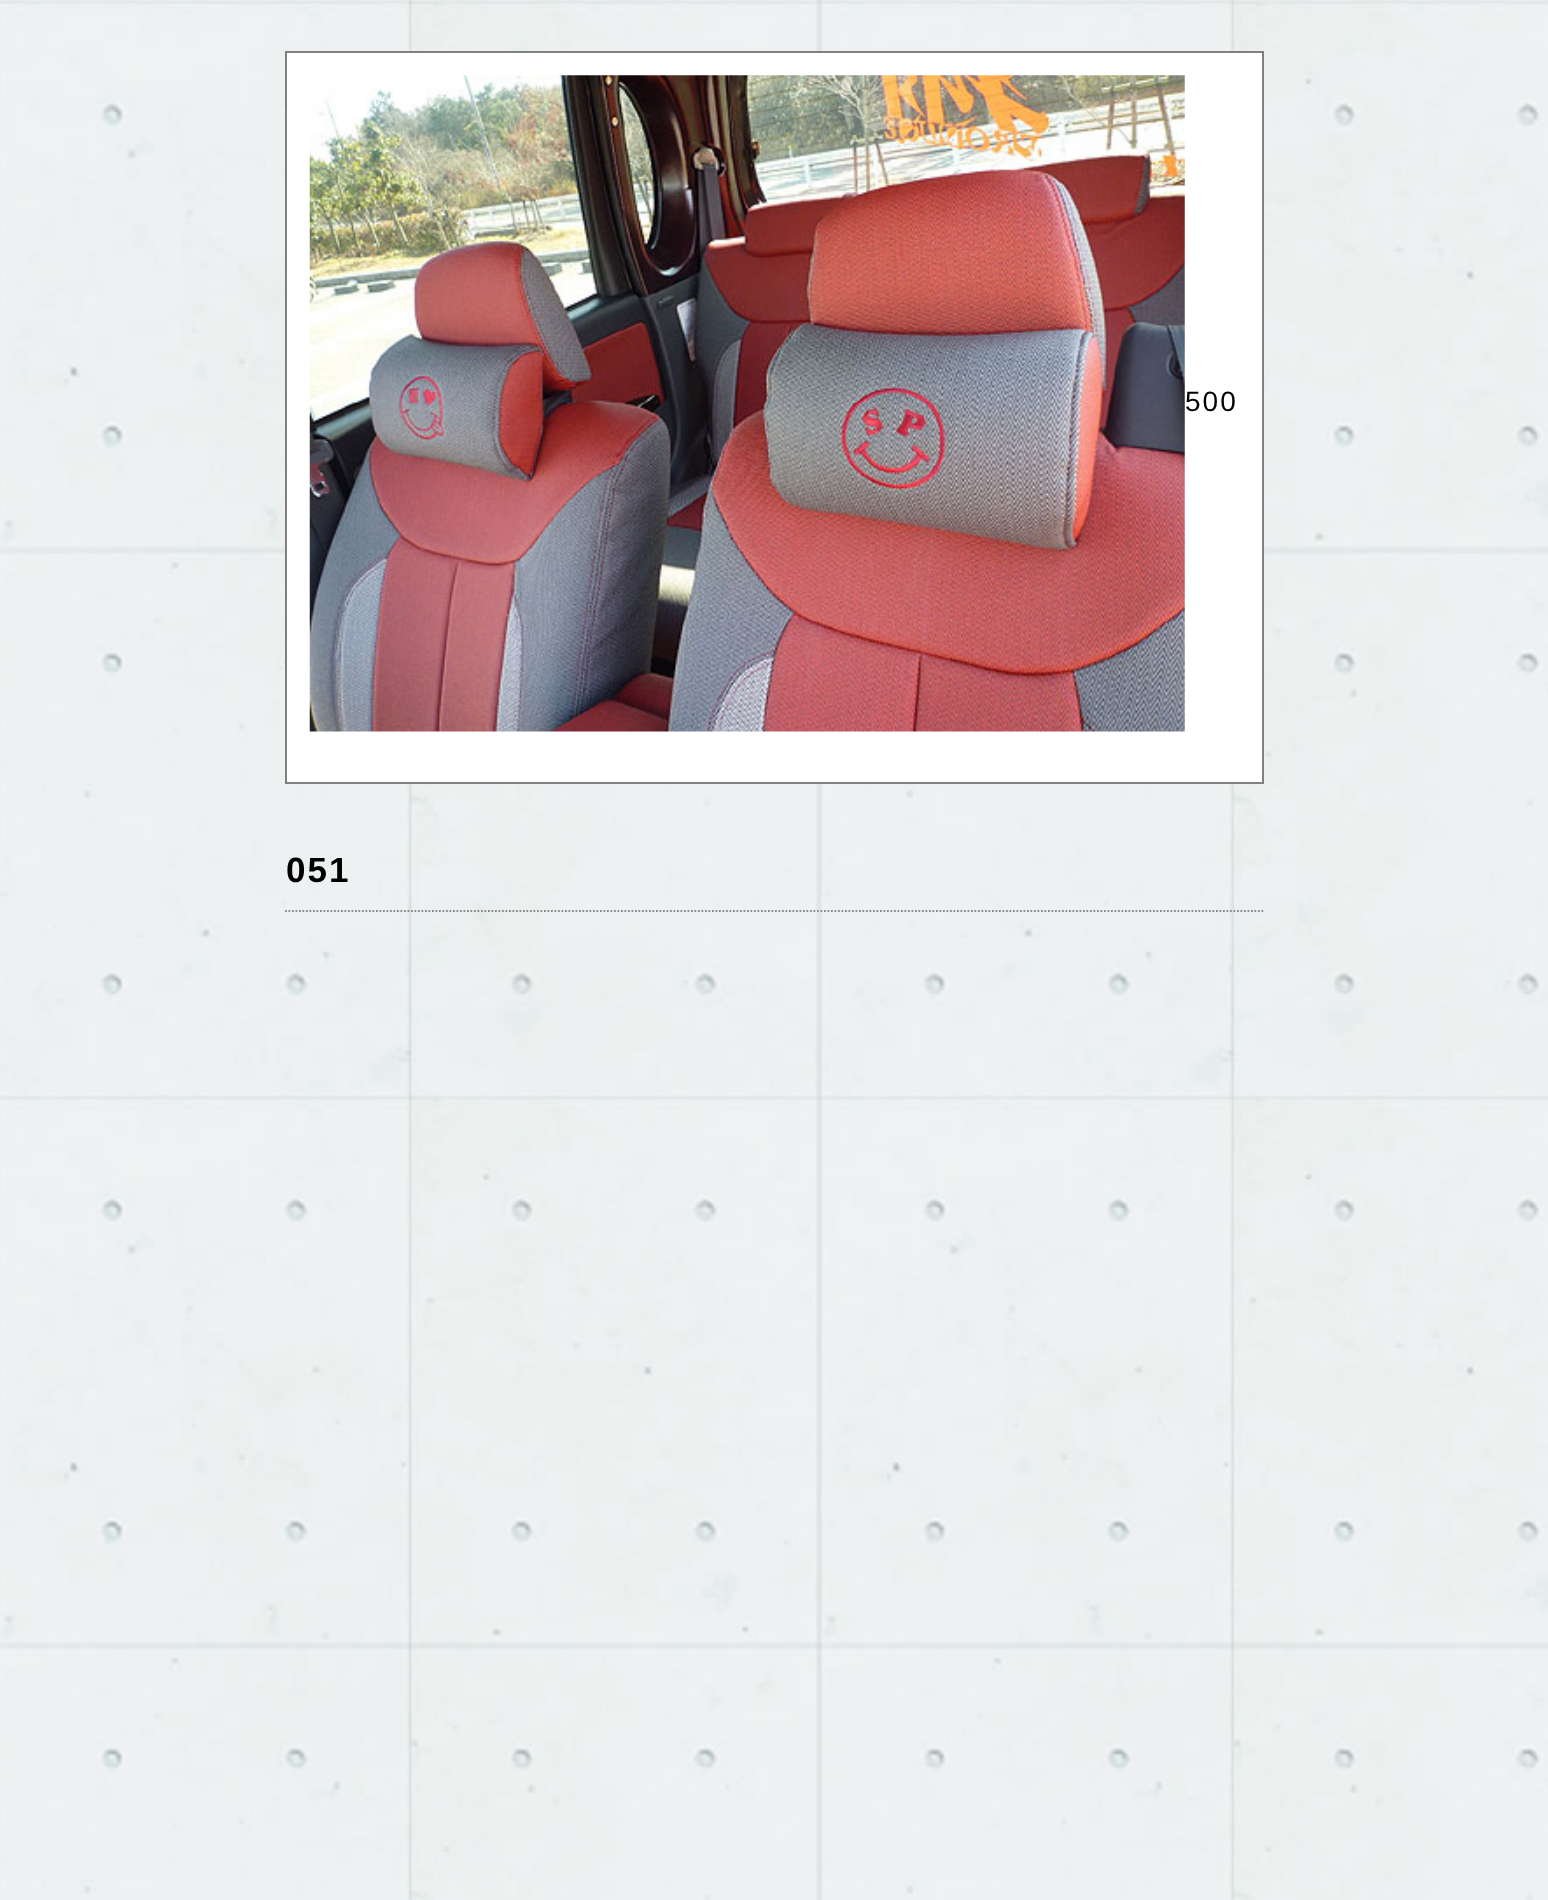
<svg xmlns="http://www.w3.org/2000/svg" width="1548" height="1900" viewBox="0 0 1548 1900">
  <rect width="100%" height="100%" fill="rgb(255,255,255)"/>
  <image x="0" y="0" width="1548" height="1900" href="pic1.png"/>
  <rect x="286" y="52" width="977" height="731" fill="rgb(255,255,255)" stroke="rgb(128,128,128)" stroke-width="2"/>
  <image x="309" y="75" width="876" height="657" href="pic2.png"/>
  <text x="1185" y="411" font-family="Liberation Sans" font-size="28" letter-spacing="2" fill="rgb(0,0,0)">500</text>
  <path d="M285 911H1263.5" fill="none" stroke="rgb(136,136,136)" stroke-width="1.8" stroke-dasharray="1.75 1.75"/>
  <text x="286" y="882" font-family="Liberation Sans" font-size="35" font-weight="bold" letter-spacing="2" fill="rgb(0,0,0)">051</text>
</svg>
